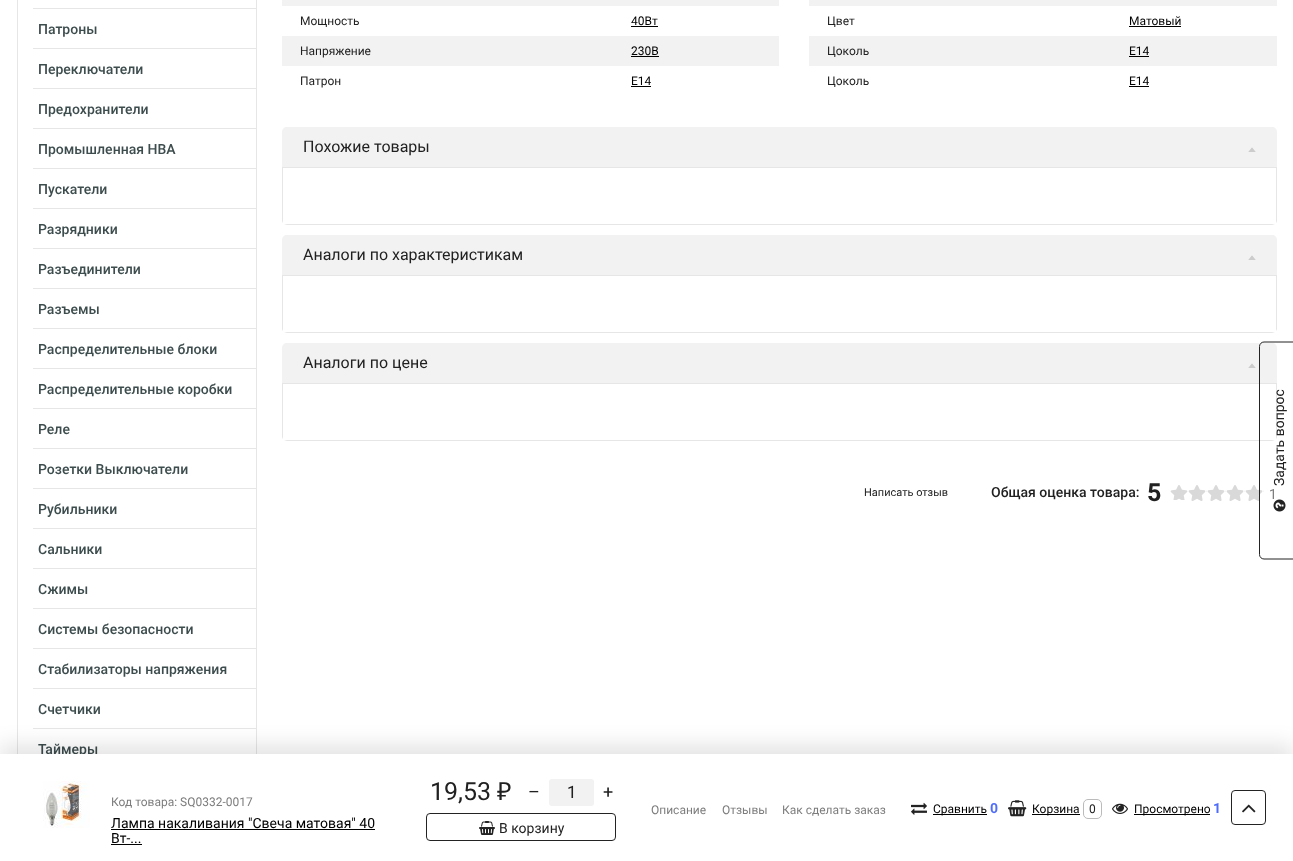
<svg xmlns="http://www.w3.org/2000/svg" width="1293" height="861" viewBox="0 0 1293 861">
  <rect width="100%" height="100%" fill="rgb(255,255,255)"/>
  <rect x="17.5" y="-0.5" width="239" height="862" fill="none" stroke="rgb(230,230,230)"/>
  <rect x="33" y="8" width="223" height="1" fill="rgb(230,230,230)"/>
  <rect x="33" y="48" width="223" height="1" fill="rgb(230,230,230)"/>
  <text x="38" y="34" font-family="Roboto" font-size="14" font-weight="500" fill="rgb(61,76,77)">Патроны</text>
  <rect x="33" y="88" width="223" height="1" fill="rgb(230,230,230)"/>
  <text x="38" y="74" font-family="Roboto" font-size="14" font-weight="500" fill="rgb(61,76,77)">Переключатели</text>
  <rect x="33" y="128" width="223" height="1" fill="rgb(230,230,230)"/>
  <text x="38" y="114" font-family="Roboto" font-size="14" font-weight="500" fill="rgb(61,76,77)">Предохранители</text>
  <rect x="33" y="168" width="223" height="1" fill="rgb(230,230,230)"/>
  <text x="38" y="154" font-family="Roboto" font-size="14" font-weight="500" fill="rgb(61,76,77)">Промышленная НВА</text>
  <rect x="33" y="208" width="223" height="1" fill="rgb(230,230,230)"/>
  <text x="38" y="194" font-family="Roboto" font-size="14" font-weight="500" fill="rgb(61,76,77)">Пускатели</text>
  <rect x="33" y="248" width="223" height="1" fill="rgb(230,230,230)"/>
  <text x="38" y="234" font-family="Roboto" font-size="14" font-weight="500" fill="rgb(61,76,77)">Разрядники</text>
  <rect x="33" y="288" width="223" height="1" fill="rgb(230,230,230)"/>
  <text x="38" y="274" font-family="Roboto" font-size="14" font-weight="500" fill="rgb(61,76,77)">Разъединители</text>
  <rect x="33" y="328" width="223" height="1" fill="rgb(230,230,230)"/>
  <text x="38" y="314" font-family="Roboto" font-size="14" font-weight="500" fill="rgb(61,76,77)">Разъемы</text>
  <rect x="33" y="368" width="223" height="1" fill="rgb(230,230,230)"/>
  <text x="38" y="354" font-family="Roboto" font-size="14" font-weight="500" fill="rgb(61,76,77)">Распределительные блоки</text>
  <rect x="33" y="408" width="223" height="1" fill="rgb(230,230,230)"/>
  <text x="38" y="394" font-family="Roboto" font-size="14" font-weight="500" fill="rgb(61,76,77)">Распределительные коробки</text>
  <rect x="33" y="448" width="223" height="1" fill="rgb(230,230,230)"/>
  <text x="38" y="434" font-family="Roboto" font-size="14" font-weight="500" fill="rgb(61,76,77)">Реле</text>
  <rect x="33" y="488" width="223" height="1" fill="rgb(230,230,230)"/>
  <text x="38" y="474" font-family="Roboto" font-size="14" font-weight="500" fill="rgb(61,76,77)">Розетки Выключатели</text>
  <rect x="33" y="528" width="223" height="1" fill="rgb(230,230,230)"/>
  <text x="38" y="514" font-family="Roboto" font-size="14" font-weight="500" fill="rgb(61,76,77)">Рубильники</text>
  <rect x="33" y="568" width="223" height="1" fill="rgb(230,230,230)"/>
  <text x="38" y="554" font-family="Roboto" font-size="14" font-weight="500" fill="rgb(61,76,77)">Сальники</text>
  <rect x="33" y="608" width="223" height="1" fill="rgb(230,230,230)"/>
  <text x="38" y="594" font-family="Roboto" font-size="14" font-weight="500" fill="rgb(61,76,77)">Сжимы</text>
  <rect x="33" y="648" width="223" height="1" fill="rgb(230,230,230)"/>
  <text x="38" y="634" font-family="Roboto" font-size="14" font-weight="500" fill="rgb(61,76,77)">Системы безопасности</text>
  <rect x="33" y="688" width="223" height="1" fill="rgb(230,230,230)"/>
  <text x="38" y="674" font-family="Roboto" font-size="14" font-weight="500" fill="rgb(61,76,77)">Стабилизаторы напряжения</text>
  <rect x="33" y="728" width="223" height="1" fill="rgb(230,230,230)"/>
  <g font-family="Roboto" font-size="14" font-weight="500" fill="rgb(61,76,77)">
    <text x="38" y="714">Счетчики</text>
    <text x="38" y="754">Таймеры</text>
  </g>
  <rect x="282" y="0" width="497" height="6" fill="rgb(242,242,242)"/>
  <text x="300" y="25" font-family="Roboto" font-size="12" fill="rgb(33,33,33)">Мощность</text>
  <text x="631" y="25" font-family="Roboto" font-size="12" fill="rgb(0,0,0)">40Вт</text>
  <rect x="631" y="26" width="27" height="1" fill="rgb(0,0,0)"/>
  <rect x="282" y="36" width="497" height="30" fill="rgb(242,242,242)"/>
  <text x="300" y="55" font-family="Roboto" font-size="12" fill="rgb(33,33,33)">Напряжение</text>
  <text x="631" y="55" font-family="Roboto" font-size="12" fill="rgb(0,0,0)">230В</text>
  <rect x="631" y="56" width="28" height="1" fill="rgb(0,0,0)"/>
  <text x="300" y="85" font-family="Roboto" font-size="12" fill="rgb(33,33,33)">Патрон</text>
  <text x="631" y="85" font-family="Roboto" font-size="12" fill="rgb(0,0,0)">E14</text>
  <rect x="631" y="86" width="20" height="1" fill="rgb(0,0,0)"/>
  <rect x="809" y="0" width="468" height="6" fill="rgb(242,242,242)"/>
  <text x="827" y="25" font-family="Roboto" font-size="12" fill="rgb(33,33,33)">Цвет</text>
  <text x="1129" y="25" font-family="Roboto" font-size="12" fill="rgb(0,0,0)">Матовый</text>
  <rect x="1129" y="26" width="52" height="1" fill="rgb(0,0,0)"/>
  <rect x="809" y="36" width="468" height="30" fill="rgb(242,242,242)"/>
  <text x="827" y="55" font-family="Roboto" font-size="12" fill="rgb(33,33,33)">Цоколь</text>
  <text x="1129" y="55" font-family="Roboto" font-size="12" fill="rgb(0,0,0)">E14</text>
  <rect x="1129" y="56" width="20" height="1" fill="rgb(0,0,0)"/>
  <text x="827" y="85" font-family="Roboto" font-size="12" fill="rgb(33,33,33)">Цоколь</text>
  <text x="1129" y="85" font-family="Roboto" font-size="12" fill="rgb(0,0,0)">Е14</text>
  <rect x="1129" y="86" width="20" height="1" fill="rgb(0,0,0)"/>
  <path d="M287 127H1272C1275 127 1277 129 1277 132V167H282V132C282 129 284 127 287 127Z" fill="rgb(242,242,242)"/>
  <text x="303" y="152" font-family="Roboto" font-size="16" fill="rgb(33,33,33)">Похожие товары</text>
  <image x="1248" y="147" width="8" height="5" href="pic1.png"/>
  <path d="M283 168H1276V223C1277 222 1277 221 1277 220V167H282V220C282 221 282 222 283 223ZM1272 225L1275 224H284L287 225Z" fill="rgb(230,230,230)" fill-rule="evenodd"/>
  <path d="M287 235H1272C1275 235 1277 237 1277 240V275H282V240C282 237 284 235 287 235Z" fill="rgb(242,242,242)"/>
  <text x="303" y="260" font-family="Roboto" font-size="16" fill="rgb(33,33,33)">Аналоги по характеристикам</text>
  <image x="1248" y="255" width="8" height="5" href="pic1.png"/>
  <path d="M283 276H1276V331C1277 330 1277 329 1277 328V275H282V328C282 329 282 330 283 331ZM1272 333L1275 332H284L287 333Z" fill="rgb(230,230,230)" fill-rule="evenodd"/>
  <path d="M287 343H1272C1275 343 1277 345 1277 348V383H282V348C282 345 284 343 287 343Z" fill="rgb(242,242,242)"/>
  <text x="303" y="368" font-family="Roboto" font-size="16" fill="rgb(33,33,33)">Аналоги по цене</text>
  <image x="1248" y="363" width="8" height="5" href="pic1.png"/>
  <path d="M283 384H1276V439C1277 438 1277 437 1277 436V383H282V436C282 437 282 438 283 439ZM1272 441L1275 440H284L287 441Z" fill="rgb(230,230,230)" fill-rule="evenodd"/>
  <text x="864" y="496" font-family="Roboto" font-size="11" fill="rgb(33,33,33)">Написать отзыв</text>
  <text x="991" y="497" font-family="Roboto" font-size="14" font-weight="500" fill="rgb(33,33,33)">Общая оценка товара:</text>
  <text x="1147" y="501" font-family="Roboto" font-size="25" font-weight="bold" fill="rgb(33,33,33)">5</text>
  <image x="1170" y="485" width="18" height="15" href="pic2.png"/>
  <image x="1188" y="485" width="19" height="16" href="pic3.png"/>
  <image x="1207" y="485" width="19" height="16" href="pic3.png"/>
  <image x="1226" y="485" width="19" height="16" href="pic3.png"/>
  <image x="1245" y="485" width="19" height="16" href="pic3.png"/>
  <text x="1269" y="499" font-family="Roboto" font-size="14" fill="rgb(125,125,125)">1</text>
  <path d="M1259.5 554.5V346.5C1259.5 344 1261.5 342 1264 342H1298.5V559H1264C1261.5 559 1259.5 557 1259.5 554.5Z" fill="none" stroke="rgb(35,35,35)"/>
  <text x="1284" y="486" transform="rotate(-90 1284 486)" font-family="Roboto" font-size="14" fill="rgb(33,33,33)">Задать вопрос</text>
  <image x="1273" y="499" width="13" height="13" href="pic4.png"/>
  <rect x="0" y="744" width="1293" height="107" fill="rgba(0,0,0,0.1)" filter="blur(10px)"/>
  <rect x="0" y="754" width="1293" height="107" fill="rgb(255,255,255)"/>
  <image x="43" y="781" width="47" height="47" href="pic5.png"/>
  <text x="111" y="806" font-family="Roboto" font-size="12" fill="rgb(125,125,125)">Код товара: SQ0332-0017</text>
  <text x="111" y="828" font-family="Roboto" font-size="14" fill="rgb(0,0,0)">Лампа накаливания "Свеча матовая" 40</text>
  <rect x="111" y="829" width="264" height="1" fill="rgb(0,0,0)"/>
  <text x="111" y="843" font-family="Roboto" font-size="14" fill="rgb(0,0,0)">Вт-...</text>
  <rect x="111" y="844" width="31" height="1" fill="rgb(0,0,0)"/>
  <text x="430" y="800" font-family="Roboto" font-size="25" fill="rgb(33,33,33)">19,53</text>
  <text x="497" y="800" font-family="Noto Sans" font-size="25" fill="rgb(33,33,33)">₽</text>
  <text x="528" y="798" font-family="Roboto" font-size="18" fill="rgb(33,33,33)">–</text>
  <rect x="549" y="779" width="45" height="27" rx="3" fill="rgb(242,242,242)"/>
  <text x="567" y="798" font-family="Roboto" font-size="17" fill="rgb(33,33,33)">1</text>
  <text x="603" y="798" font-family="Roboto" font-size="18" fill="rgb(33,33,33)">+</text>
  <rect x="426.5" y="813.5" width="189" height="27" rx="3.5" fill="none" stroke="rgb(35,35,35)"/>
  <image x="479" y="821" width="16" height="14" href="pic6.png"/>
  <text x="499" y="833" font-family="Roboto" font-size="14" fill="rgb(33,33,33)">В корзину</text>
  <g font-family="Roboto" font-size="12" fill="rgb(125,125,125)">
    <text x="651" y="814">Описание</text>
    <text x="722" y="814">Отзывы</text>
    <text x="782" y="814">Как сделать заказ</text>
  </g>
  <image x="911" y="802" width="16" height="13" href="pic7.png"/>
  <rect x="933" y="814" width="54" height="1" fill="rgb(0,0,0)"/>
  <text x="933" y="813" font-family="Roboto" font-size="12" fill="rgb(0,0,0)">Сравнить</text>
  <text x="990" y="813" font-family="Roboto" font-size="14" font-weight="bold" fill="rgb(80,109,249)">0</text>
  <image x="1008" y="800" width="19" height="17" href="pic8.png"/>
  <rect x="1032" y="814" width="48" height="1" fill="rgb(0,0,0)"/>
  <text x="1032" y="813" font-family="Roboto" font-size="12" fill="rgb(0,0,0)">Корзина</text>
  <rect x="1083.5" y="799.5" width="18" height="19" rx="4.5" fill="none" stroke="rgb(187,187,187)"/>
  <text x="1089" y="813" font-family="Roboto" font-size="12" fill="rgb(33,33,33)">0</text>
  <image x="1112" y="803" width="16" height="11" href="pic9.png"/>
  <rect x="1134" y="814" width="76" height="1" fill="rgb(0,0,0)"/>
  <text x="1134" y="813" font-family="Roboto" font-size="12" fill="rgb(0,0,0)">Просмотрено</text>
  <text x="1213" y="813" font-family="Roboto" font-size="14" font-weight="bold" fill="rgb(80,109,249)">1</text>
  <rect x="1231.5" y="790.5" width="34" height="34" rx="3.5" fill="none" stroke="rgb(35,35,35)"/>
  <image x="1242" y="804" width="14" height="9" href="pic10.png"/>
</svg>
